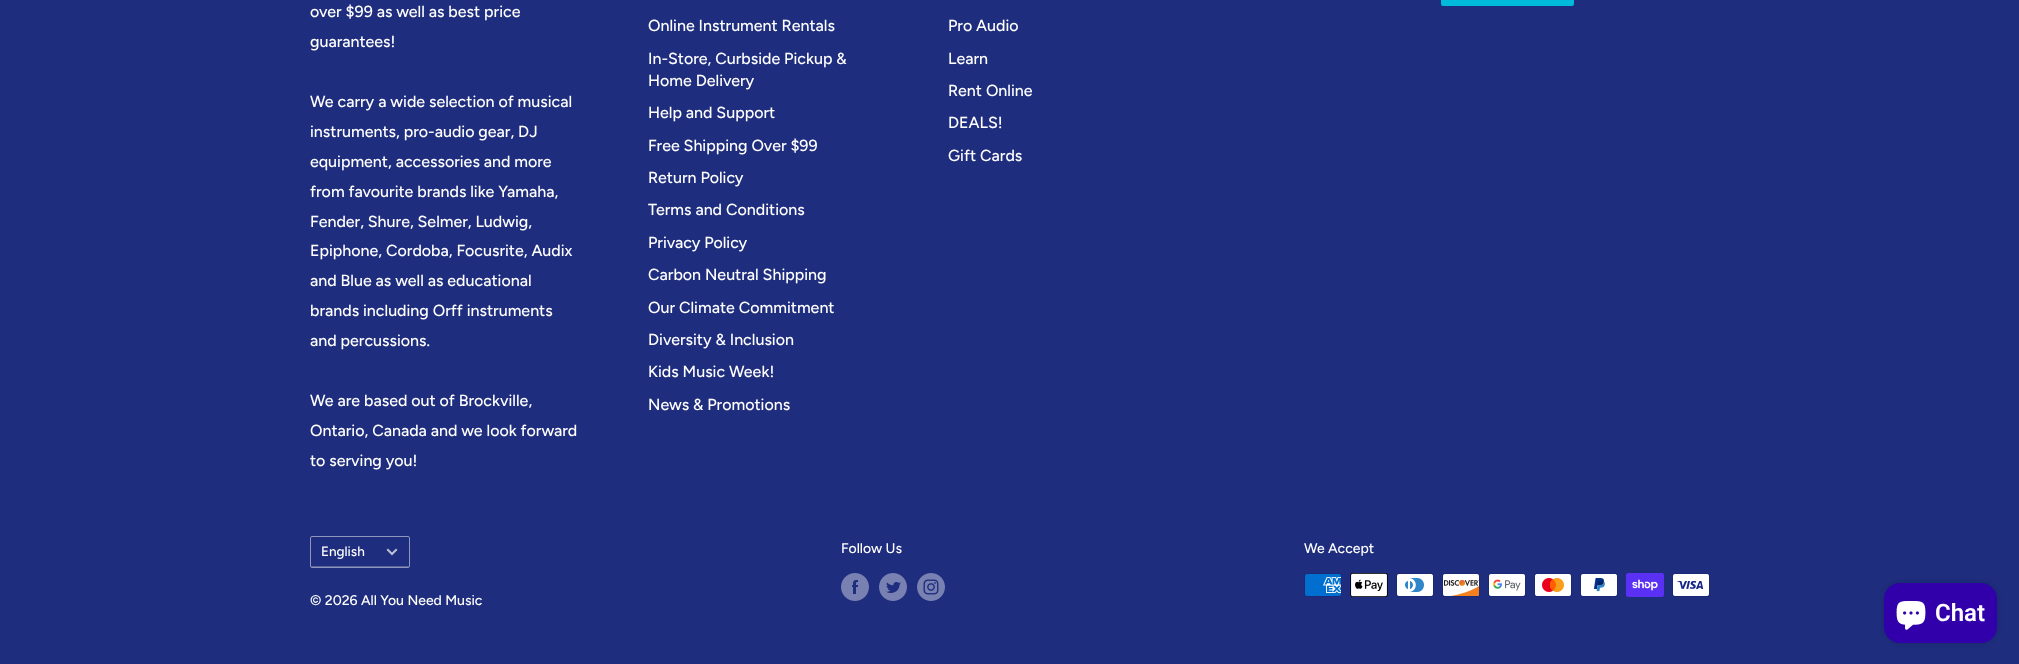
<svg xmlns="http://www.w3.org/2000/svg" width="2019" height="664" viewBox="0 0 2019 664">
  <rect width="100%" height="100%" fill="rgb(30,45,125)"/>
  <rect x="1441" y="-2" width="133" height="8" rx="2" fill="rgb(0,186,219)"/>
  <g font-family="Figtree" font-size="16" font-weight="500" fill="rgb(255,255,255)">
    <text>
      <tspan x="310" y="17">over $99 as well as best price</tspan>
      <tspan x="310" y="47">guarantees!</tspan>
    </text>
    <text>
      <tspan x="310" y="107">We carry a wide selection of musical</tspan>
      <tspan x="310" y="137">instruments, pro-audio gear, DJ</tspan>
      <tspan x="310" y="167">equipment, accessories and more</tspan>
      <tspan x="310" y="197">from favourite brands like Yamaha,</tspan>
      <tspan x="310" y="227">Fender, Shure, Selmer, Ludwig,</tspan>
      <tspan x="310" y="256">Epiphone, Cordoba, Focusrite, Audix</tspan>
      <tspan x="310" y="286">and Blue as well as educational</tspan>
      <tspan x="310" y="316">brands including Orff instruments</tspan>
      <tspan x="310" y="346">and percussions.</tspan>
    </text>
    <text>
      <tspan x="310" y="406">We are based out of Brockville,</tspan>
      <tspan x="310" y="436">Ontario, Canada and we look forward</tspan>
      <tspan x="310" y="466">to serving you!</tspan>
    </text>
    <text x="648" y="31">Online Instrument Rentals</text>
    <text>
      <tspan x="648" y="64">In-Store, Curbside Pickup &amp;</tspan>
      <tspan x="648" y="86">Home Delivery</tspan>
    </text>
    <text x="648" y="118">Help and Support</text>
    <text x="648" y="151">Free Shipping Over $99</text>
    <text x="648" y="183">Return Policy</text>
    <text x="648" y="215">Terms and Conditions</text>
    <text x="648" y="248">Privacy Policy</text>
    <text x="648" y="280">Carbon Neutral Shipping</text>
    <text x="648" y="313">Our Climate Commitment</text>
    <text x="648" y="345">Diversity &amp; Inclusion</text>
    <text x="648" y="377">Kids Music Week!</text>
    <text x="648" y="410">News &amp; Promotions</text>
    <text x="948" y="31">Pro Audio</text>
    <text x="948" y="64">Learn</text>
    <text x="948" y="96">Rent Online</text>
    <text x="948" y="128">DEALS!</text>
    <text x="948" y="161">Gift Cards</text>
  </g>
  <path d="M311 565C311 566 311 567 312 567H408C409 567 409 566 409 565C409 566 409 566 408 566H312C311 566 311 566 311 565Z" fill="rgb(89,100,156)"/>
  <rect x="310.5" y="536.5" width="99" height="31" rx="1.5" fill="none" stroke="rgb(143,150,190)"/>
  <text x="321" y="556" font-family="Figtree" font-size="13.5" font-weight="500" fill="rgb(255,255,255)">English</text>
  <path d="M396 550L392 554L388 550" fill="none" stroke="rgb(188,192,216)" stroke-width="2" stroke-linecap="square"/>
  <g font-family="Figtree" font-size="14" font-weight="500" fill="rgb(255,255,255)">
    <text x="310" y="605">© 2026 All You Need Music</text>
    <text x="841" y="553">Follow Us</text>
  </g>
  <image x="841" y="573" width="28" height="28" href="pic1.png"/>
  <image x="879" y="573" width="28" height="28" href="pic2.png"/>
  <image x="917" y="573" width="28" height="28" href="pic3.png"/>
  <text x="1304" y="553" font-family="Figtree" font-size="14" font-weight="500" fill="rgb(255,255,255)">We Accept</text>
  <image x="1304" y="573" width="38" height="24" href="pic4.png"/>
  <image x="1350" y="573" width="38" height="24" href="pic5.png"/>
  <image x="1396" y="573" width="38" height="24" href="pic6.png"/>
  <image x="1442" y="573" width="38" height="24" href="pic7.png"/>
  <image x="1488" y="573" width="38" height="24" href="pic8.png"/>
  <image x="1534" y="573" width="38" height="24" href="pic9.png"/>
  <image x="1580" y="573" width="38" height="24" href="pic10.png"/>
  <image x="1626" y="573" width="38" height="24" href="pic11.png"/>
  <image x="1672" y="573" width="38" height="24" href="pic12.png"/>
  <rect x="1884" y="583" width="113" height="60" rx="16" fill="rgba(0,0,0,0.15)" filter="blur(2.5px)"/>
  <rect x="1884" y="583" width="113" height="60" rx="16" fill="rgb(49,0,171)"/>
  <image x="1896" y="601" width="30" height="29" href="pic13.png"/>
  <text x="1935" y="621" font-family="Roboto" font-size="24" font-weight="600" fill="rgb(255,255,255)">Chat</text>
</svg>
